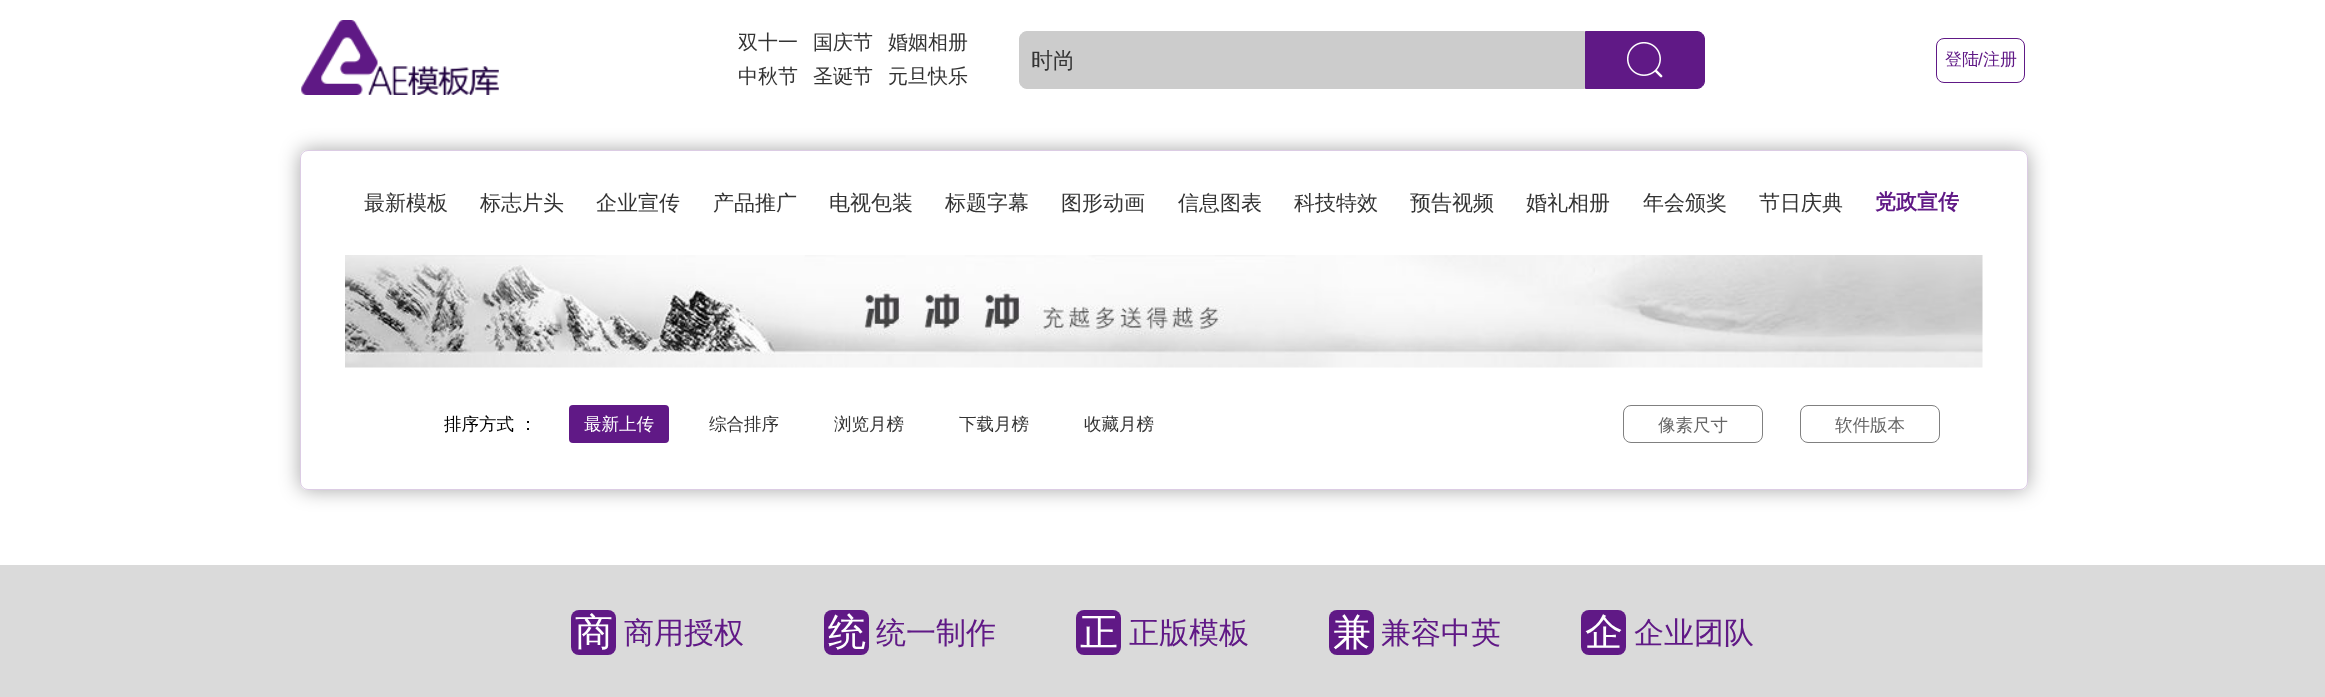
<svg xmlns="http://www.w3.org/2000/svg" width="2325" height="697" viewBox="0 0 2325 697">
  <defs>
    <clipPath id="clip1"><path d="M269 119H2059V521H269ZM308 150H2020C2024.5 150 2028 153.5 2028 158V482C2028 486.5 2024.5 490 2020 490H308C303.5 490 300 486.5 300 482V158C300 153.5 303.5 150 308 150Z" clip-rule="evenodd"/></clipPath>
  </defs>
  <rect width="100%" height="100%" fill="rgb(255,255,255)"/>
  <image x="301" y="20" width="198" height="75" href="pic1.png"/>
  <g font-family="WenQuanYi Zen Hei" font-size="20" font-weight="500" fill="rgb(51,51,51)">
    <text>
      <tspan x="738" y="49">双十一</tspan>
      <tspan x="738" y="83">中秋节</tspan>
    </text>
    <text>
      <tspan x="813" y="49">国庆节</tspan>
      <tspan x="813" y="83">圣诞节</tspan>
    </text>
    <text>
      <tspan x="888" y="49">婚姻相册</tspan>
      <tspan x="888" y="83">元旦快乐</tspan>
    </text>
  </g>
  <path d="M1027 31.5H1584.5V88.5H1027C1023 88.5 1019.5 85 1019.5 81V39C1019.5 35 1023 31.5 1027 31.5Z" fill="rgb(204,204,204)" stroke="rgb(204,204,204)"/>
  <text x="1031" y="68" font-family="WenQuanYi Zen Hei" font-size="22" font-weight="500" fill="rgb(51,51,51)">时尚</text>
  <path d="M1585.5 31.5H1697C1701 31.5 1704.5 35 1704.5 39V81C1704.5 85 1701 88.5 1697 88.5H1585.5Z" fill="rgb(96,25,134)" stroke="rgb(96,25,134)"/>
  <image x="1627" y="42" width="36" height="36" href="pic2.png"/>
  <rect x="1936.5" y="38.5" width="88" height="44" rx="7.5" fill="none" stroke="rgb(96,25,134)"/>
  <text x="1945" y="65" font-family="WenQuanYi Zen Hei" font-size="17" font-weight="500" fill="rgb(96,25,134)">登陆</text>
  <text x="1978" y="65" font-family="Liberation Sans" font-size="17" fill="rgb(96,25,134)">/</text>
  <text x="1983" y="65" font-family="WenQuanYi Zen Hei" font-size="17" font-weight="500" fill="rgb(96,25,134)">注册</text>
  <g clip-path="url(#clip1)">
    <rect x="300" y="150" width="1728" height="340" rx="8" fill="rgba(0,0,0,0.35)" filter="blur(10px)"/>
  </g>
  <rect x="300.5" y="150.5" width="1727" height="339" rx="7.5" fill="none" stroke="rgba(96,25,134,0.22)"/>
  <g font-family="WenQuanYi Zen Hei" font-size="21" font-weight="500" fill="rgb(51,51,51)">
    <text x="364" y="210">最新模板</text>
    <text x="480" y="210">标志片头</text>
    <text x="596" y="210">企业宣传</text>
    <text x="713" y="210">产品推广</text>
    <text x="829" y="210">电视包装</text>
    <text x="945" y="210">标题字幕</text>
    <text x="1061" y="210">图形动画</text>
    <text x="1178" y="210">信息图表</text>
    <text x="1294" y="210">科技特效</text>
    <text x="1410" y="210">预告视频</text>
    <text x="1526" y="210">婚礼相册</text>
    <text x="1643" y="210">年会颁奖</text>
    <text x="1759" y="210">节日庆典</text>
  </g>
  <text x="1875" y="209" font-family="WenQuanYi Zen Hei" font-size="21" font-weight="bold" fill="rgb(96,25,134)">党政宣传</text>
  <image x="345" y="255" width="1638" height="113" href="pic3.png"/>
  <text x="444" y="430" font-family="WenQuanYi Zen Hei" font-size="17.5" font-weight="500" fill="rgb(0,0,0)">排序方式 ：</text>
  <rect x="569" y="405" width="100" height="38" rx="4" fill="rgb(96,25,134)"/>
  <text x="584" y="430" font-family="WenQuanYi Zen Hei" font-size="17.5" font-weight="500" fill="rgb(255,255,255)">最新上传</text>
  <g font-family="WenQuanYi Zen Hei" font-size="17.5" font-weight="500" fill="rgb(51,51,51)">
    <text x="709" y="430">综合排序</text>
    <text x="834" y="430">浏览月榜</text>
    <text x="959" y="430">下载月榜</text>
    <text x="1084" y="430">收藏月榜</text>
  </g>
  <rect x="1623.5" y="405.5" width="139" height="37" rx="7.5" fill="none" stroke="rgb(128,128,128)"/>
  <text x="1658" y="431" font-family="WenQuanYi Zen Hei" font-size="17.5" font-weight="500" fill="rgb(102,102,102)">像素尺寸</text>
  <rect x="1800.5" y="405.5" width="139" height="37" rx="7.5" fill="none" stroke="rgb(128,128,128)"/>
  <text x="1835" y="431" font-family="WenQuanYi Zen Hei" font-size="17.5" font-weight="500" fill="rgb(102,102,102)">软件版本</text>
  <rect x="0" y="565" width="2325" height="132" fill="rgb(218,218,218)"/>
  <rect x="571" y="610" width="45" height="45" rx="8" fill="rgb(96,25,134)"/>
  <text x="575" y="645" font-family="WenQuanYi Zen Hei" font-size="38" font-weight="500" fill="rgb(255,255,255)">商</text>
  <text x="624" y="643" font-family="WenQuanYi Zen Hei" font-size="30" font-weight="500" fill="rgb(96,25,134)">商用授权</text>
  <rect x="824" y="610" width="45" height="45" rx="8" fill="rgb(96,25,134)"/>
  <text x="828" y="645" font-family="WenQuanYi Zen Hei" font-size="38" font-weight="500" fill="rgb(255,255,255)">统</text>
  <text x="876" y="643" font-family="WenQuanYi Zen Hei" font-size="30" font-weight="500" fill="rgb(96,25,134)">统一制作</text>
  <rect x="1076" y="610" width="45" height="45" rx="8" fill="rgb(96,25,134)"/>
  <text x="1080" y="645" font-family="WenQuanYi Zen Hei" font-size="38" font-weight="500" fill="rgb(255,255,255)">正</text>
  <text x="1129" y="643" font-family="WenQuanYi Zen Hei" font-size="30" font-weight="500" fill="rgb(96,25,134)">正版模板</text>
  <rect x="1329" y="610" width="45" height="45" rx="8" fill="rgb(96,25,134)"/>
  <text x="1333" y="645" font-family="WenQuanYi Zen Hei" font-size="38" font-weight="500" fill="rgb(255,255,255)">兼</text>
  <text x="1381" y="643" font-family="WenQuanYi Zen Hei" font-size="30" font-weight="500" fill="rgb(96,25,134)">兼容中英</text>
  <rect x="1581" y="610" width="45" height="45" rx="8" fill="rgb(96,25,134)"/>
  <text x="1585" y="645" font-family="WenQuanYi Zen Hei" font-size="38" font-weight="500" fill="rgb(255,255,255)">企</text>
  <text x="1634" y="643" font-family="WenQuanYi Zen Hei" font-size="30" font-weight="500" fill="rgb(96,25,134)">企业团队</text>
</svg>
